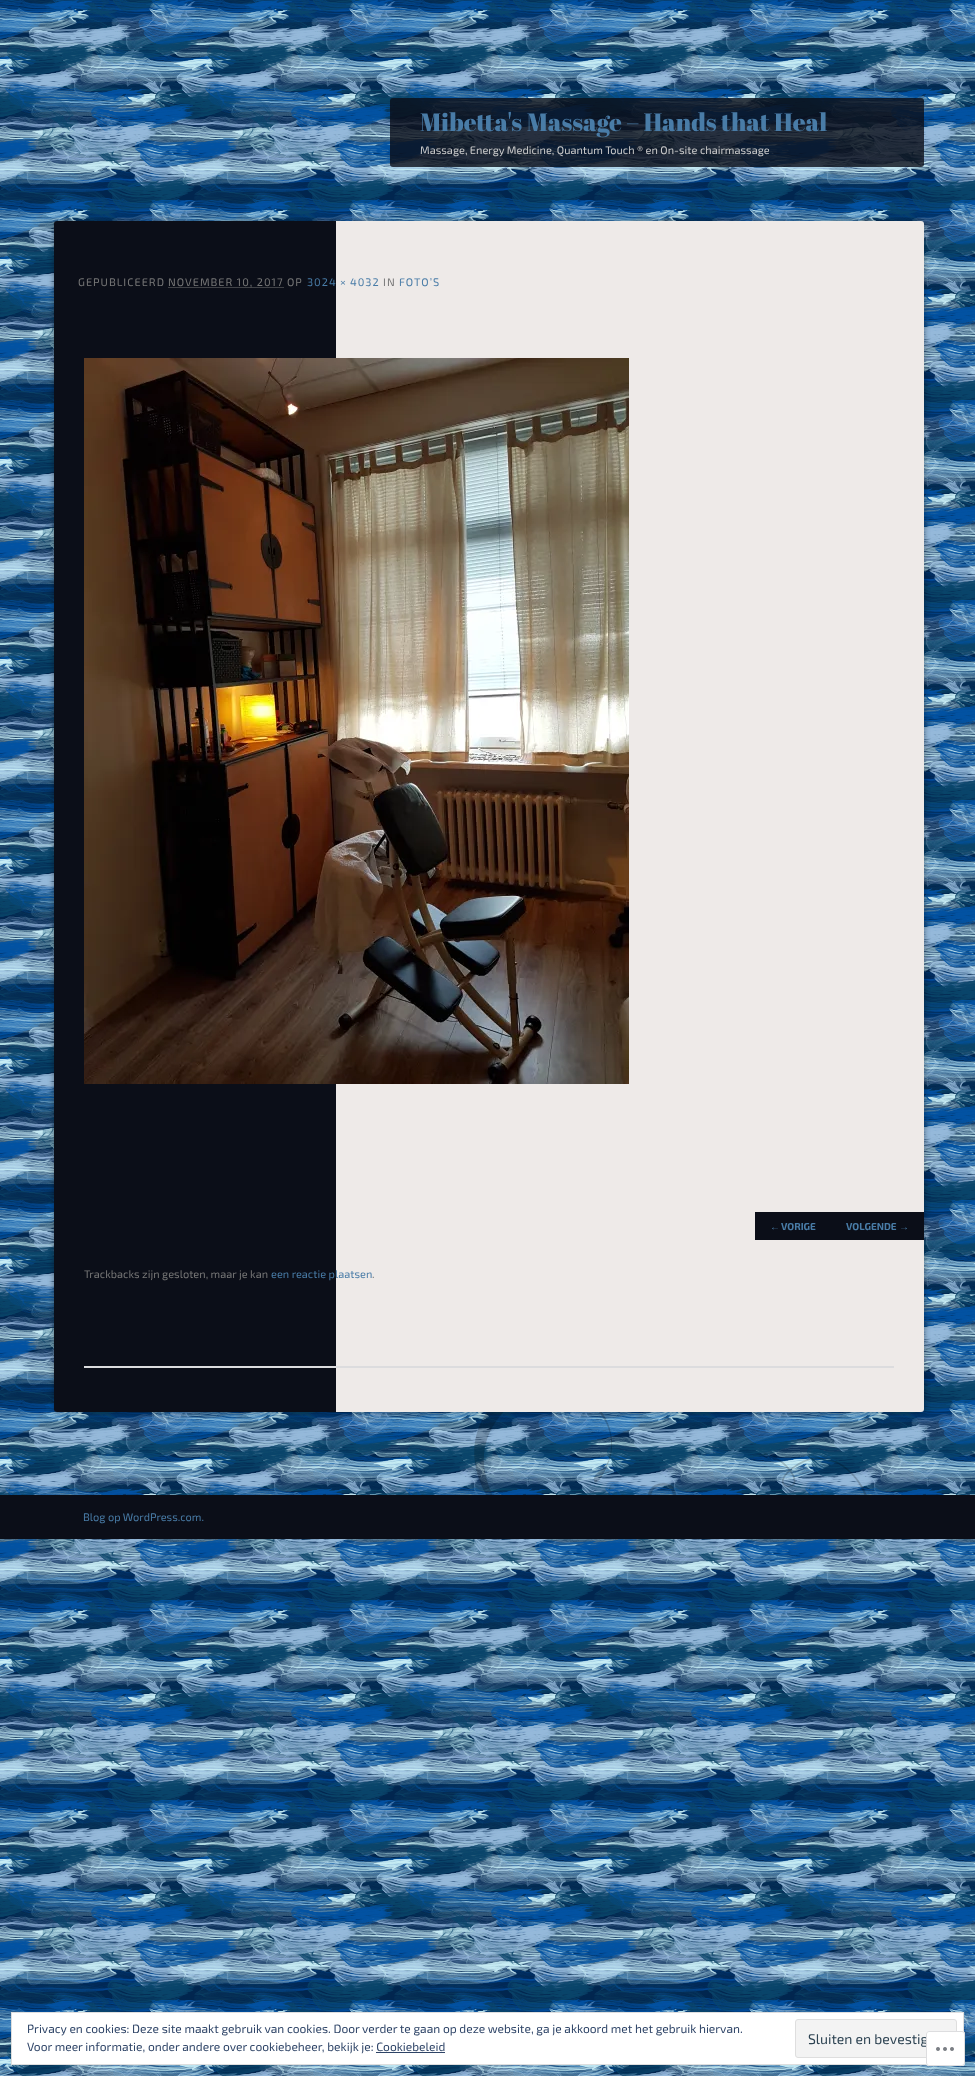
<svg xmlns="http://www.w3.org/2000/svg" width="975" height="2076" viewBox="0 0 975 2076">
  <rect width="100%" height="100%" fill="rgb(255,255,255)"/>
  <image x="0" y="0" width="975" height="2076" href="pic1.png"/>
  <image x="474" y="1412" width="393" height="83" href="pic2.png"/>
  <rect x="390" y="98" width="534" height="69" rx="3" fill="rgba(11,14,24,0.8)"/>
  <text x="420" y="131" font-family="Abril Fatface" font-size="25" fill="rgb(73,124,167)">Mibetta's Massage – Hands that Heal</text>
  <text x="420" y="154" font-family="'Exo 2'" font-size="11" fill="rgb(204,204,204)">Massage, Energy Medicine, Quantum Touch ® en On-site chairmassage</text>
  <rect x="54" y="221" width="870" height="1191" rx="3" fill="rgba(0,0,0,0.4)" filter="blur(3px)"/>
  <image x="54" y="221" width="870" height="1191" href="pic3.png"/>
  <text x="78" y="286" font-family="'Exo 2'" font-size="11" letter-spacing="1" fill="rgb(119,119,119)">GEPUBLICEERD</text>
  <path d="M168.5 287.5H284" fill="none" stroke="rgb(119,119,119)" stroke-dasharray="1 1"/>
  <text x="168" y="286" font-family="'Exo 2'" font-size="11" letter-spacing="1" fill="rgb(119,119,119)">NOVEMBER 10, 2017 OP</text>
  <text x="307" y="286" font-family="'Exo 2'" font-size="11" letter-spacing="1" fill="rgb(73,124,167)">3024 × 4032</text>
  <text x="383" y="286" font-family="'Exo 2'" font-size="11" letter-spacing="1" fill="rgb(119,119,119)">IN</text>
  <text x="399" y="286" font-family="'Exo 2'" font-size="11" letter-spacing="1" fill="rgb(73,124,167)">FOTO’S</text>
  <image x="84" y="358" width="545" height="726" href="pic4.png"/>
  <rect x="755" y="1212" width="169" height="28" fill="rgb(11,14,24)"/>
  <text x="770" y="1230" font-family="Liberation Sans" font-size="10" font-weight="bold" fill="rgb(73,124,167)">←</text>
  <g font-family="'Exo 2'" font-size="10" font-weight="bold" fill="rgb(73,124,167)">
    <text x="781" y="1230">VORIGE</text>
    <text x="846" y="1230">VOLGENDE</text>
  </g>
  <text x="899" y="1230" font-family="Liberation Sans" font-size="10" font-weight="bold" fill="rgb(73,124,167)">→</text>
  <text x="84" y="1278" font-family="'Exo 2'" font-size="11" fill="rgb(119,119,119)">Trackbacks zijn gesloten, maar je kan</text>
  <text x="271" y="1278" font-family="'Exo 2'" font-size="11" fill="rgb(73,124,167)">een reactie plaatsen</text>
  <text x="372" y="1278" font-family="'Exo 2'" font-size="11" fill="rgb(119,119,119)">.</text>
  <rect x="84" y="1366" width="810" height="2" fill="rgb(220,220,222)"/>
  <rect x="0" y="1495" width="975" height="44" fill="rgb(11,14,24)"/>
  <text x="83" y="1521" font-family="'Exo 2'" font-size="11" fill="rgb(73,124,167)">Blog op WordPress.com.</text>
  <rect x="11.5" y="2012.5" width="952" height="52" fill="rgb(255,255,255)" stroke="rgb(222,222,222)"/>
  <g font-family="'Exo 2'" font-size="12" fill="rgb(46,68,103)">
    <text>
      <tspan x="27" y="2033">Privacy en cookies: Deze site maakt gebruik van cookies. Door verder te gaan op deze website, ga je akkoord met het gebruik hiervan.</tspan>
      <tspan x="27" y="2051">Voor meer informatie, onder andere over cookiebeheer, bekijk je: Cookiebeleid</tspan>
    </text>
  </g>
  <rect x="795.5" y="2019.5" width="161" height="38" rx="2.5" fill="rgb(243,243,243)" stroke="rgb(222,222,222)"/>
  <text x="808" y="2044" font-family="'Exo 2'" font-size="14" fill="rgb(46,68,83)">Sluiten en bevestig</text>
  <rect x="376" y="2052" width="69" height="1" fill="rgb(46,68,103)"/>
  <rect x="926" y="2031" width="39" height="35" rx="3" fill="rgba(255,255,255,0.98)"/>
  <rect x="926.5" y="2031.5" width="38" height="34" rx="2.5" fill="none" stroke="rgba(220,220,222,0.98)"/>
  <image x="936" y="2047" width="18" height="4" href="pic5.png"/>
</svg>
